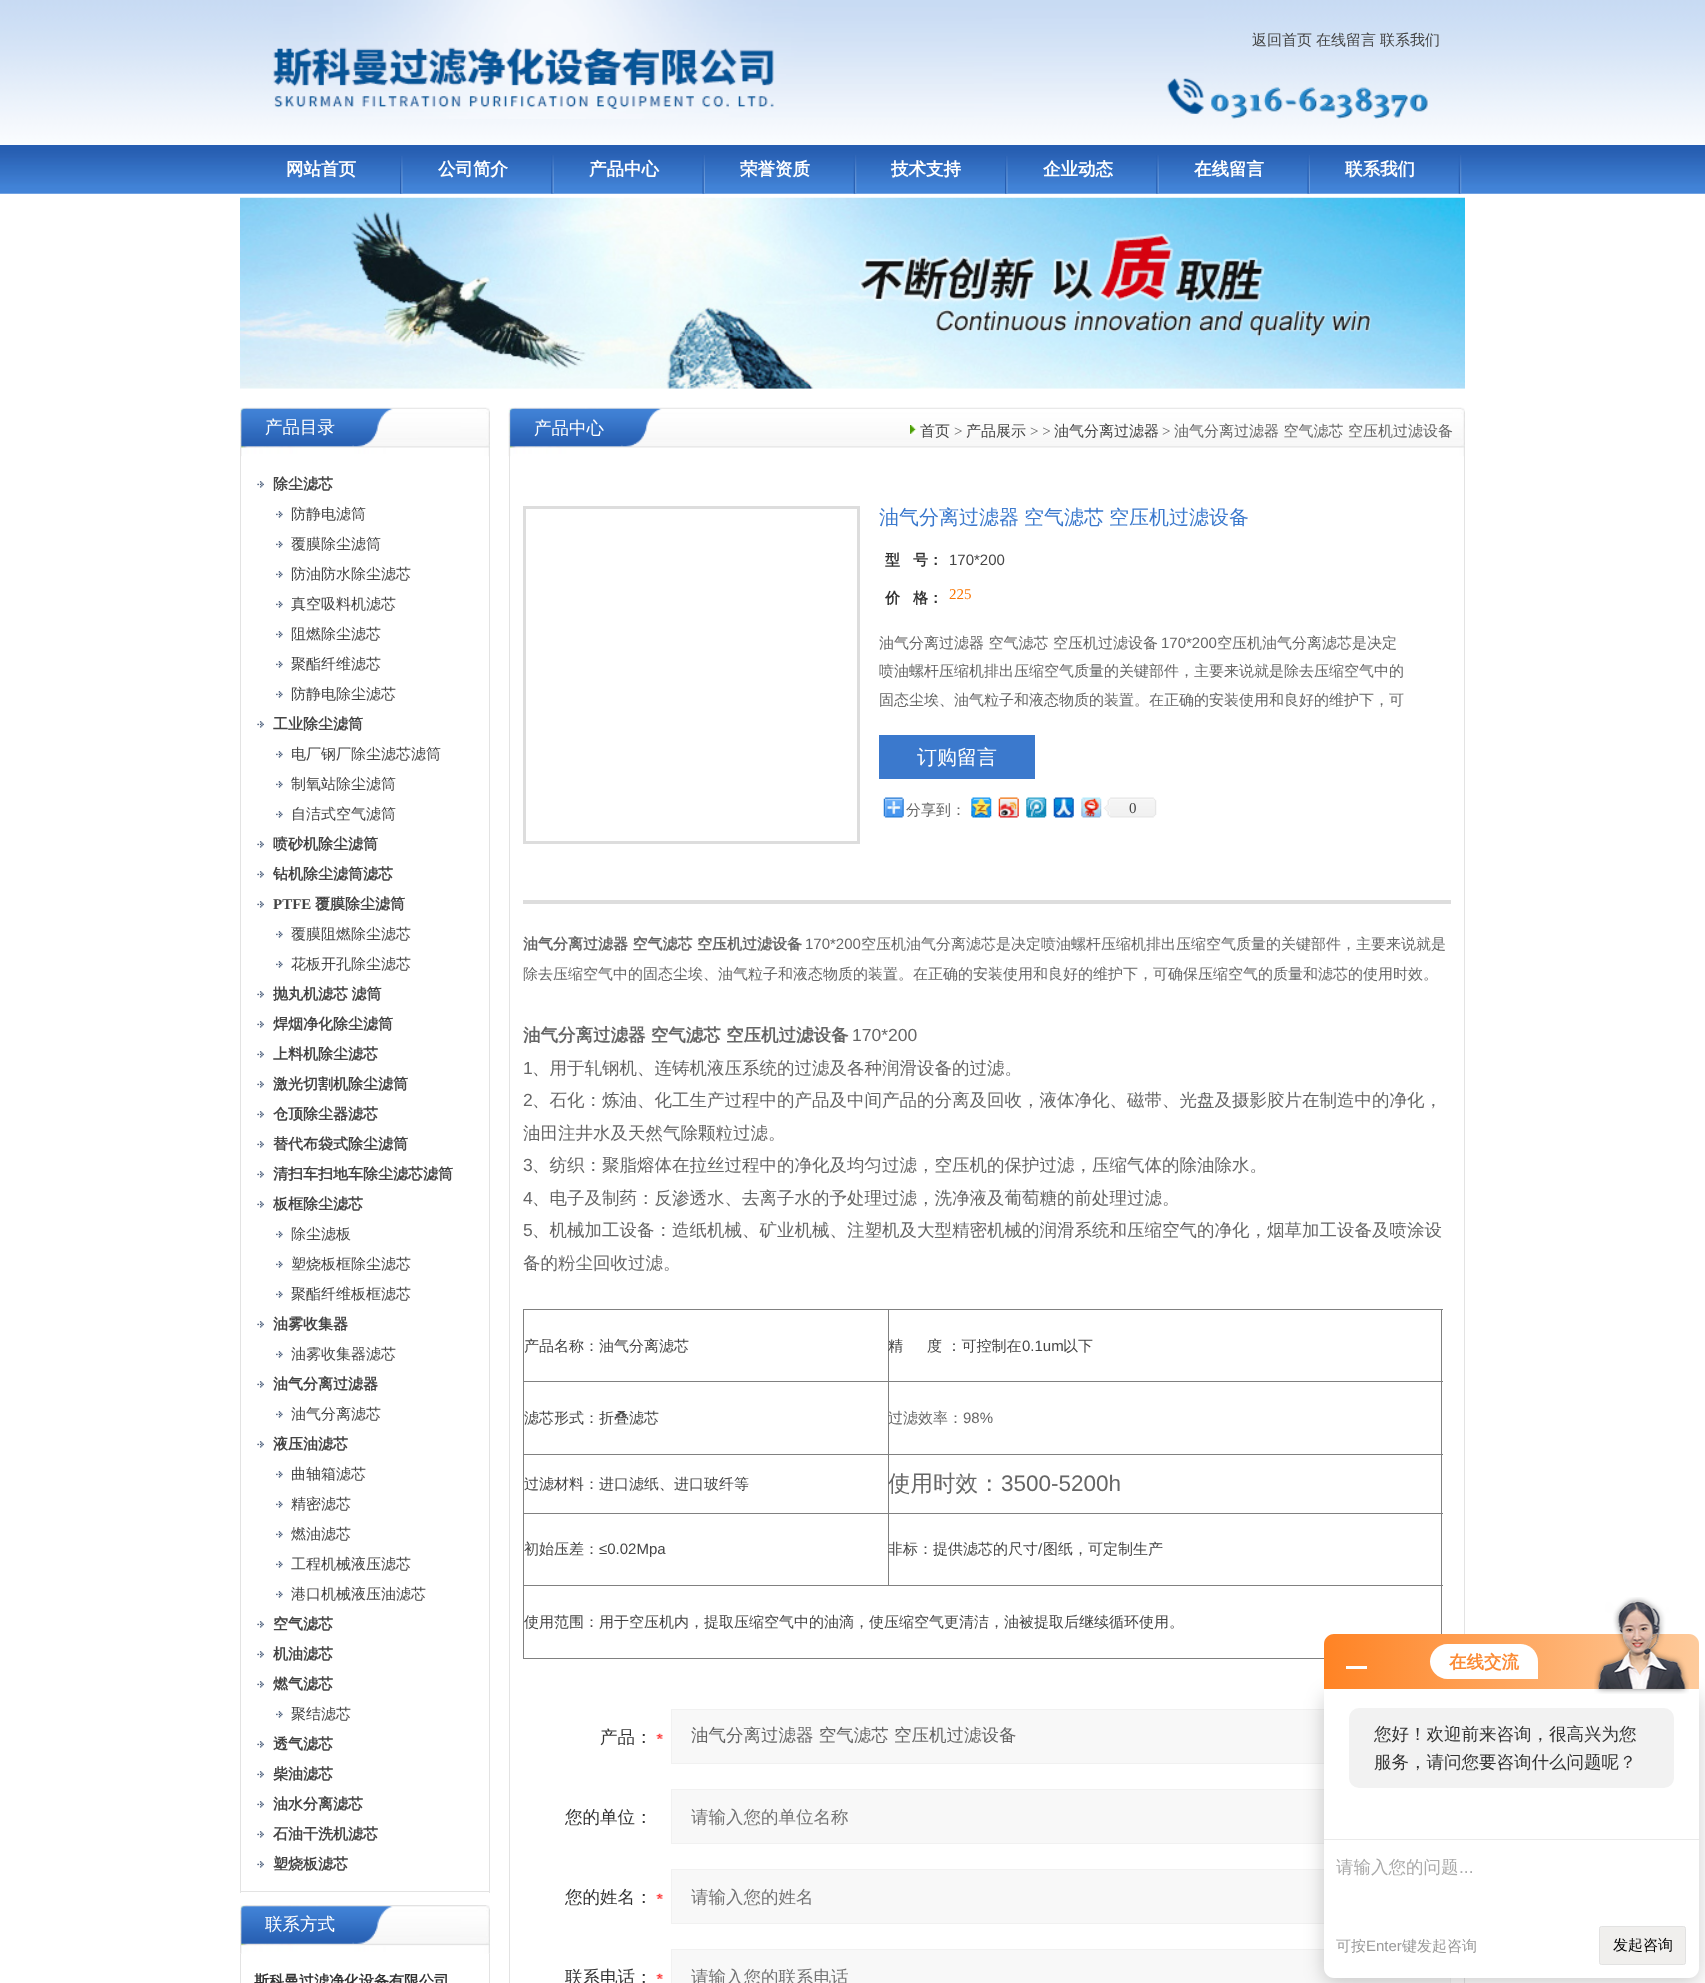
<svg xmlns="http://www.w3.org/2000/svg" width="1705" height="1983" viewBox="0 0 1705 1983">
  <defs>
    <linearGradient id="g1" gradientUnits="userSpaceOnUse" x1="1324" y1="1661" x2="1699" y2="1661"><stop offset="0" stop-color="rgb(255,131,36)"/><stop offset="1" stop-color="rgb(254,203,156)"/></linearGradient>
  </defs>
  <rect width="100%" height="100%" fill="rgb(255,255,255)"/>
  <image x="0" y="0" width="1705" height="145" href="pic1.png"/>
  <image x="273" y="0" width="931" height="119" href="pic2.png"/>
  <g font-family="WenQuanYi Zen Hei" font-size="15" font-weight="500" fill="rgb(68,68,68)">
    <text x="1252" y="45">返回首页</text>
    <text x="1316" y="45">在线留言</text>
    <text x="1380" y="45">联系我们</text>
  </g>
  <image x="1211" y="87" width="217" height="32" href="pic3.png"/>
  <image x="0" y="145" width="1705" height="49" href="pic4.png"/>
  <image x="400" y="156" width="3" height="38" href="pic5.png"/>
  <text x="286" y="175" font-family="WenQuanYi Zen Hei" font-size="17.5" font-weight="bold" fill="rgb(255,255,255)">网站首页</text>
  <image x="551" y="155" width="3" height="39" href="pic6.png"/>
  <text x="438" y="175" font-family="WenQuanYi Zen Hei" font-size="17.5" font-weight="bold" fill="rgb(255,255,255)">公司简介</text>
  <image x="702" y="155" width="3" height="39" href="pic7.png"/>
  <text x="589" y="175" font-family="WenQuanYi Zen Hei" font-size="17.5" font-weight="bold" fill="rgb(255,255,255)">产品中心</text>
  <image x="853" y="155" width="4" height="39" href="pic8.png"/>
  <text x="740" y="175" font-family="WenQuanYi Zen Hei" font-size="17.5" font-weight="bold" fill="rgb(255,255,255)">荣誉资质</text>
  <image x="1005" y="156" width="3" height="38" href="pic5.png"/>
  <text x="891" y="175" font-family="WenQuanYi Zen Hei" font-size="17.5" font-weight="bold" fill="rgb(255,255,255)">技术支持</text>
  <image x="1156" y="155" width="3" height="39" href="pic6.png"/>
  <text x="1043" y="175" font-family="WenQuanYi Zen Hei" font-size="17.5" font-weight="bold" fill="rgb(255,255,255)">企业动态</text>
  <image x="1307" y="155" width="3" height="39" href="pic7.png"/>
  <text x="1194" y="175" font-family="WenQuanYi Zen Hei" font-size="17.5" font-weight="bold" fill="rgb(255,255,255)">在线留言</text>
  <image x="1458" y="155" width="4" height="39" href="pic8.png"/>
  <text x="1345" y="175" font-family="WenQuanYi Zen Hei" font-size="17.5" font-weight="bold" fill="rgb(255,255,255)">联系我们</text>
  <image x="240" y="197" width="1225" height="192" href="pic9.png"/>
  <image x="240" y="407" width="250" height="50" href="pic10.png"/>
  <text x="265" y="433" font-family="WenQuanYi Zen Hei" font-size="17.5" font-weight="500" fill="rgb(255,255,255)">产品目录</text>
  <rect x="489" y="456" width="1" height="1437" fill="rgb(227,227,227)"/>
  <rect x="240" y="1891" width="250" height="1" fill="rgb(227,227,227)"/>
  <rect x="240" y="456" width="1" height="1437" fill="rgb(227,227,227)"/>
  <image x="257" y="481" width="7" height="7" href="pic11.png"/>
  <text x="273" y="489" font-family="WenQuanYi Zen Hei" font-size="15" font-weight="bold" fill="rgb(68,68,68)">除尘滤芯</text>
  <image x="276" y="511" width="7" height="7" href="pic12.png"/>
  <text x="291" y="519" font-family="WenQuanYi Zen Hei" font-size="15" font-weight="500" fill="rgb(68,68,68)">防静电滤筒</text>
  <image x="276" y="541" width="7" height="7" href="pic12.png"/>
  <text x="291" y="549" font-family="WenQuanYi Zen Hei" font-size="15" font-weight="500" fill="rgb(68,68,68)">覆膜除尘滤筒</text>
  <image x="276" y="571" width="7" height="7" href="pic12.png"/>
  <text x="291" y="579" font-family="WenQuanYi Zen Hei" font-size="15" font-weight="500" fill="rgb(68,68,68)">防油防水除尘滤芯</text>
  <image x="276" y="601" width="7" height="7" href="pic12.png"/>
  <text x="291" y="609" font-family="WenQuanYi Zen Hei" font-size="15" font-weight="500" fill="rgb(68,68,68)">真空吸料机滤芯</text>
  <image x="276" y="631" width="7" height="7" href="pic12.png"/>
  <text x="291" y="639" font-family="WenQuanYi Zen Hei" font-size="15" font-weight="500" fill="rgb(68,68,68)">阻燃除尘滤芯</text>
  <image x="276" y="661" width="7" height="7" href="pic12.png"/>
  <text x="291" y="669" font-family="WenQuanYi Zen Hei" font-size="15" font-weight="500" fill="rgb(68,68,68)">聚酯纤维滤芯</text>
  <image x="276" y="691" width="7" height="7" href="pic12.png"/>
  <text x="291" y="699" font-family="WenQuanYi Zen Hei" font-size="15" font-weight="500" fill="rgb(68,68,68)">防静电除尘滤芯</text>
  <image x="257" y="721" width="7" height="7" href="pic11.png"/>
  <text x="273" y="729" font-family="WenQuanYi Zen Hei" font-size="15" font-weight="bold" fill="rgb(68,68,68)">工业除尘滤筒</text>
  <image x="276" y="751" width="7" height="7" href="pic12.png"/>
  <text x="291" y="759" font-family="WenQuanYi Zen Hei" font-size="15" font-weight="500" fill="rgb(68,68,68)">电厂钢厂除尘滤芯滤筒</text>
  <image x="276" y="781" width="7" height="7" href="pic13.png"/>
  <text x="291" y="789" font-family="WenQuanYi Zen Hei" font-size="15" font-weight="500" fill="rgb(68,68,68)">制氧站除尘滤筒</text>
  <image x="276" y="811" width="7" height="7" href="pic12.png"/>
  <text x="291" y="819" font-family="WenQuanYi Zen Hei" font-size="15" font-weight="500" fill="rgb(68,68,68)">自洁式空气滤筒</text>
  <image x="257" y="841" width="7" height="7" href="pic11.png"/>
  <text x="273" y="849" font-family="WenQuanYi Zen Hei" font-size="15" font-weight="bold" fill="rgb(68,68,68)">喷砂机除尘滤筒</text>
  <image x="257" y="871" width="7" height="7" href="pic11.png"/>
  <text x="273" y="879" font-family="WenQuanYi Zen Hei" font-size="15" font-weight="bold" fill="rgb(68,68,68)">钻机除尘滤筒滤芯</text>
  <image x="257" y="901" width="7" height="7" href="pic11.png"/>
  <text x="273" y="909" font-family="Liberation Serif" font-size="15" font-weight="bold" fill="rgb(68,68,68)">PTFE</text>
  <text x="315" y="909" font-family="WenQuanYi Zen Hei" font-size="15" font-weight="bold" fill="rgb(68,68,68)">覆膜除尘滤筒</text>
  <image x="276" y="931" width="7" height="7" href="pic12.png"/>
  <text x="291" y="939" font-family="WenQuanYi Zen Hei" font-size="15" font-weight="500" fill="rgb(68,68,68)">覆膜阻燃除尘滤芯</text>
  <image x="276" y="961" width="7" height="7" href="pic12.png"/>
  <text x="291" y="969" font-family="WenQuanYi Zen Hei" font-size="15" font-weight="500" fill="rgb(68,68,68)">花板开孔除尘滤芯</text>
  <image x="257" y="991" width="7" height="7" href="pic11.png"/>
  <text x="273" y="999" word-spacing="-1" font-family="WenQuanYi Zen Hei" font-size="15" font-weight="bold" fill="rgb(68,68,68)">抛丸机滤芯 滤筒</text>
  <image x="257" y="1021" width="7" height="7" href="pic11.png"/>
  <text x="273" y="1029" font-family="WenQuanYi Zen Hei" font-size="15" font-weight="bold" fill="rgb(68,68,68)">焊烟净化除尘滤筒</text>
  <image x="257" y="1051" width="7" height="7" href="pic11.png"/>
  <text x="273" y="1059" font-family="WenQuanYi Zen Hei" font-size="15" font-weight="bold" fill="rgb(68,68,68)">上料机除尘滤芯</text>
  <image x="257" y="1081" width="7" height="7" href="pic11.png"/>
  <text x="273" y="1089" font-family="WenQuanYi Zen Hei" font-size="15" font-weight="bold" fill="rgb(68,68,68)">激光切割机除尘滤筒</text>
  <image x="257" y="1111" width="7" height="7" href="pic11.png"/>
  <text x="273" y="1119" font-family="WenQuanYi Zen Hei" font-size="15" font-weight="bold" fill="rgb(68,68,68)">仓顶除尘器滤芯</text>
  <image x="257" y="1141" width="7" height="7" href="pic11.png"/>
  <text x="273" y="1149" font-family="WenQuanYi Zen Hei" font-size="15" font-weight="bold" fill="rgb(68,68,68)">替代布袋式除尘滤筒</text>
  <image x="257" y="1171" width="7" height="7" href="pic11.png"/>
  <text x="273" y="1179" font-family="WenQuanYi Zen Hei" font-size="15" font-weight="bold" fill="rgb(68,68,68)">清扫车扫地车除尘滤芯滤筒</text>
  <image x="257" y="1201" width="7" height="7" href="pic11.png"/>
  <text x="273" y="1209" font-family="WenQuanYi Zen Hei" font-size="15" font-weight="bold" fill="rgb(68,68,68)">板框除尘滤芯</text>
  <image x="276" y="1231" width="7" height="7" href="pic12.png"/>
  <text x="291" y="1239" font-family="WenQuanYi Zen Hei" font-size="15" font-weight="500" fill="rgb(68,68,68)">除尘滤板</text>
  <image x="276" y="1261" width="7" height="7" href="pic12.png"/>
  <text x="291" y="1269" font-family="WenQuanYi Zen Hei" font-size="15" font-weight="500" fill="rgb(68,68,68)">塑烧板框除尘滤芯</text>
  <image x="276" y="1291" width="7" height="7" href="pic12.png"/>
  <text x="291" y="1299" font-family="WenQuanYi Zen Hei" font-size="15" font-weight="500" fill="rgb(68,68,68)">聚酯纤维板框滤芯</text>
  <image x="257" y="1321" width="7" height="7" href="pic11.png"/>
  <text x="273" y="1329" font-family="WenQuanYi Zen Hei" font-size="15" font-weight="bold" fill="rgb(68,68,68)">油雾收集器</text>
  <image x="276" y="1351" width="7" height="7" href="pic12.png"/>
  <text x="291" y="1359" font-family="WenQuanYi Zen Hei" font-size="15" font-weight="500" fill="rgb(68,68,68)">油雾收集器滤芯</text>
  <image x="257" y="1381" width="7" height="7" href="pic11.png"/>
  <text x="273" y="1389" font-family="WenQuanYi Zen Hei" font-size="15" font-weight="bold" fill="rgb(68,68,68)">油气分离过滤器</text>
  <image x="276" y="1411" width="7" height="7" href="pic12.png"/>
  <text x="291" y="1419" font-family="WenQuanYi Zen Hei" font-size="15" font-weight="500" fill="rgb(68,68,68)">油气分离滤芯</text>
  <image x="257" y="1441" width="7" height="7" href="pic11.png"/>
  <text x="273" y="1449" font-family="WenQuanYi Zen Hei" font-size="15" font-weight="bold" fill="rgb(68,68,68)">液压油滤芯</text>
  <image x="276" y="1471" width="7" height="7" href="pic12.png"/>
  <text x="291" y="1479" font-family="WenQuanYi Zen Hei" font-size="15" font-weight="500" fill="rgb(68,68,68)">曲轴箱滤芯</text>
  <image x="276" y="1501" width="7" height="7" href="pic12.png"/>
  <text x="291" y="1509" font-family="WenQuanYi Zen Hei" font-size="15" font-weight="500" fill="rgb(68,68,68)">精密滤芯</text>
  <image x="276" y="1531" width="7" height="7" href="pic12.png"/>
  <text x="291" y="1539" font-family="WenQuanYi Zen Hei" font-size="15" font-weight="500" fill="rgb(68,68,68)">燃油滤芯</text>
  <image x="276" y="1561" width="7" height="7" href="pic12.png"/>
  <text x="291" y="1569" font-family="WenQuanYi Zen Hei" font-size="15" font-weight="500" fill="rgb(68,68,68)">工程机械液压滤芯</text>
  <image x="276" y="1591" width="7" height="7" href="pic12.png"/>
  <text x="291" y="1599" font-family="WenQuanYi Zen Hei" font-size="15" font-weight="500" fill="rgb(68,68,68)">港口机械液压油滤芯</text>
  <image x="257" y="1621" width="7" height="7" href="pic11.png"/>
  <text x="273" y="1629" font-family="WenQuanYi Zen Hei" font-size="15" font-weight="bold" fill="rgb(68,68,68)">空气滤芯</text>
  <image x="257" y="1651" width="7" height="7" href="pic11.png"/>
  <text x="273" y="1659" font-family="WenQuanYi Zen Hei" font-size="15" font-weight="bold" fill="rgb(68,68,68)">机油滤芯</text>
  <image x="257" y="1681" width="7" height="7" href="pic11.png"/>
  <text x="273" y="1689" font-family="WenQuanYi Zen Hei" font-size="15" font-weight="bold" fill="rgb(68,68,68)">燃气滤芯</text>
  <image x="276" y="1711" width="7" height="7" href="pic12.png"/>
  <text x="291" y="1719" font-family="WenQuanYi Zen Hei" font-size="15" font-weight="500" fill="rgb(68,68,68)">聚结滤芯</text>
  <image x="257" y="1741" width="7" height="7" href="pic11.png"/>
  <text x="273" y="1749" font-family="WenQuanYi Zen Hei" font-size="15" font-weight="bold" fill="rgb(68,68,68)">透气滤芯</text>
  <image x="257" y="1771" width="7" height="7" href="pic11.png"/>
  <text x="273" y="1779" font-family="WenQuanYi Zen Hei" font-size="15" font-weight="bold" fill="rgb(68,68,68)">柴油滤芯</text>
  <image x="257" y="1801" width="7" height="7" href="pic11.png"/>
  <text x="273" y="1809" font-family="WenQuanYi Zen Hei" font-size="15" font-weight="bold" fill="rgb(68,68,68)">油水分离滤芯</text>
  <image x="257" y="1831" width="7" height="7" href="pic11.png"/>
  <text x="273" y="1839" font-family="WenQuanYi Zen Hei" font-size="15" font-weight="bold" fill="rgb(68,68,68)">石油干洗机滤芯</text>
  <image x="257" y="1861" width="7" height="7" href="pic11.png"/>
  <text x="273" y="1869" font-family="WenQuanYi Zen Hei" font-size="15" font-weight="bold" fill="rgb(68,68,68)">塑烧板滤芯</text>
  <image x="240" y="1905" width="250" height="49" href="pic14.png"/>
  <text x="265" y="1930" font-family="WenQuanYi Zen Hei" font-size="17.5" font-weight="500" fill="rgb(255,255,255)">联系方式</text>
  <rect x="489" y="1954" width="1" height="29" fill="rgb(227,227,227)"/>
  <rect x="240" y="1954" width="1" height="29" fill="rgb(227,227,227)"/>
  <text x="254" y="1986" font-family="WenQuanYi Zen Hei" font-size="15" font-weight="bold" fill="rgb(51,51,51)">斯科曼过滤净化设备有限公司</text>
  <image x="508" y="407" width="957" height="50" href="pic15.png"/>
  <text x="534" y="434" font-family="WenQuanYi Zen Hei" font-size="17.5" font-weight="500" fill="rgb(255,255,255)">产品中心</text>
  <image x="910" y="425" width="7" height="9" href="pic16.png"/>
  <text x="920" y="436" font-family="WenQuanYi Zen Hei" font-size="15" font-weight="500" fill="rgb(68,68,68)">首页</text>
  <text x="954" y="436" font-family="Liberation Serif" font-size="15" fill="rgb(102,102,102)">&gt;</text>
  <text x="966" y="436" font-family="WenQuanYi Zen Hei" font-size="15" font-weight="500" fill="rgb(68,68,68)">产品展示</text>
  <text x="1030" y="436" font-family="Liberation Serif" font-size="15" fill="rgb(102,102,102)">&gt; &gt;</text>
  <text x="1054" y="436" font-family="WenQuanYi Zen Hei" font-size="15" font-weight="500" fill="rgb(68,68,68)">油气分离过滤器</text>
  <text x="1162" y="436" font-family="Liberation Serif" font-size="15" fill="rgb(102,102,102)">&gt;</text>
  <text x="1174" y="436" font-family="WenQuanYi Zen Hei" font-size="15" font-weight="500" fill="rgb(102,102,102)">油气分离过滤器 空气滤芯 空压机过滤设备</text>
  <rect x="1464" y="456" width="1" height="1527" fill="rgb(227,227,227)"/>
  <rect x="509" y="456" width="1" height="1527" fill="rgb(227,227,227)"/>
  <rect x="523" y="900" width="928" height="4" fill="rgb(221,221,221)"/>
  <rect x="524.5" y="507.5" width="334" height="335" fill="none" stroke="rgb(221,221,221)" stroke-width="3"/>
  <text x="879" y="524" word-spacing="-1" font-family="WenQuanYi Zen Hei" font-size="20" font-weight="500" fill="rgb(59,121,205)">油气分离过滤器 空气滤芯 空压机过滤设备</text>
  <g font-family="WenQuanYi Zen Hei" font-size="15" font-weight="bold" fill="rgb(51,51,51)">
    <text x="885" y="565">型</text>
    <text x="913" y="565">号：</text>
  </g>
  <text x="949" y="565" font-family="Liberation Sans" font-size="15" fill="rgb(68,68,68)">170*200</text>
  <g font-family="WenQuanYi Zen Hei" font-size="15" font-weight="bold" fill="rgb(51,51,51)">
    <text x="885" y="603">价</text>
    <text x="913" y="603">格：</text>
  </g>
  <text x="949" y="599" font-family="Liberation Serif" font-size="15" fill="rgb(249,118,2)">225</text>
  <text x="879" y="648" font-family="WenQuanYi Zen Hei" font-size="15" font-weight="500" fill="rgb(102,102,102)">油气分离过滤器 空气滤芯 空压机过滤设备</text>
  <text x="1161" y="648" font-family="Liberation Sans" font-size="15" fill="rgb(102,102,102)">170*200</text>
  <g font-family="WenQuanYi Zen Hei" font-size="15" font-weight="500" fill="rgb(102,102,102)">
    <text x="1217" y="648">空压机油气分离滤芯是决定</text>
    <text>
      <tspan x="879" y="676">喷油螺杆压缩机排出压缩空气质量的关键部件，主要来说就是除去压缩空气中的</tspan>
      <tspan x="879" y="705">固态尘埃、油气粒子和液态物质的装置。在正确的安装使用和良好的维护下，可</tspan>
    </text>
  </g>
  <rect x="879" y="735" width="156" height="44" fill="rgb(59,121,205)"/>
  <text x="917" y="764" font-family="WenQuanYi Zen Hei" font-size="20" font-weight="500" fill="rgb(255,255,255)">订购留言</text>
  <image x="883" y="797" width="21" height="21" href="pic17.png"/>
  <text x="906" y="815" font-family="WenQuanYi Zen Hei" font-size="15" font-weight="500" fill="rgb(102,102,102)">分享到：</text>
  <image x="971" y="797" width="21" height="21" href="pic18.png"/>
  <image x="998" y="797" width="21" height="21" href="pic19.png"/>
  <image x="1026" y="797" width="21" height="21" href="pic20.png"/>
  <image x="1053" y="797" width="21" height="21" href="pic21.png"/>
  <image x="1081" y="797" width="21" height="21" href="pic22.png"/>
  <image x="1103" y="797" width="54" height="21" href="pic23.png"/>
  <text x="1129" y="813" font-family="Liberation Serif" font-size="15" fill="rgb(68,68,68)">0</text>
  <text x="523" y="949" font-family="WenQuanYi Zen Hei" font-size="15" font-weight="bold" fill="rgb(102,102,102)">油气分离过滤器 空气滤芯 空压机过滤设备</text>
  <text x="805" y="949" font-family="Liberation Sans" font-size="15" fill="rgb(102,102,102)">170*200</text>
  <g font-family="WenQuanYi Zen Hei" font-size="15" font-weight="500" fill="rgb(102,102,102)">
    <text x="861" y="949">空压机油气分离滤芯是决定喷油螺杆压缩机排出压缩空气质量的关键部件，主要来说就是</text>
    <text x="523" y="979">除去压缩空气中的固态尘埃、油气粒子和液态物质的装置。在正确的安装使用和良好的维护下，可确保压缩空气的质量和滤芯的使用时效。</text>
  </g>
  <text x="523" y="1041" font-family="WenQuanYi Zen Hei" font-size="17.5" font-weight="bold" fill="rgb(102,102,102)">油气分离过滤器 空气滤芯 空压机过滤设备</text>
  <g font-family="Liberation Sans" font-size="17.5" fill="rgb(102,102,102)">
    <text x="852" y="1041">170*200</text>
    <text x="523" y="1074">1</text>
  </g>
  <text x="532" y="1074" font-family="WenQuanYi Zen Hei" font-size="17.5" font-weight="500" fill="rgb(102,102,102)">、用于轧钢机、连铸机液压系统的过滤及各种润滑设备的过滤。</text>
  <text x="523" y="1106" font-family="Liberation Sans" font-size="17.5" fill="rgb(102,102,102)">2</text>
  <g font-family="WenQuanYi Zen Hei" font-size="17.5" font-weight="500" fill="rgb(102,102,102)">
    <text x="532" y="1106">、石化：炼油、化工生产过程中的产品及中间产品的分离及回收，液体净化、磁带、光盘及摄影胶片在制造中的净化，</text>
    <text x="523" y="1139">油田注井水及天然气除颗粒过滤。</text>
  </g>
  <text x="523" y="1171" font-family="Liberation Sans" font-size="17.5" fill="rgb(102,102,102)">3</text>
  <text x="532" y="1171" font-family="WenQuanYi Zen Hei" font-size="17.5" font-weight="500" fill="rgb(102,102,102)">、纺织：聚脂熔体在拉丝过程中的净化及均匀过滤，空压机的保护过滤，压缩气体的除油除水。</text>
  <text x="523" y="1204" font-family="Liberation Sans" font-size="17.5" fill="rgb(102,102,102)">4</text>
  <text x="532" y="1204" font-family="WenQuanYi Zen Hei" font-size="17.5" font-weight="500" fill="rgb(102,102,102)">、电子及制药：反渗透水、去离子水的予处理过滤，洗净液及葡萄糖的前处理过滤。</text>
  <text x="523" y="1236" font-family="Liberation Sans" font-size="17.5" fill="rgb(102,102,102)">5</text>
  <g font-family="WenQuanYi Zen Hei" font-size="17.5" font-weight="500" fill="rgb(102,102,102)">
    <text x="532" y="1236">、机械加工设备：造纸机械、矿业机械、注塑机及大型精密机械的润滑系统和压缩空气的净化，烟草加工设备及喷涂设</text>
    <text x="523" y="1269">备的粉尘回收过滤。</text>
  </g>
  <rect x="523" y="1309" width="920" height="1" fill="rgb(128,128,128)"/>
  <rect x="1441" y="1309" width="1" height="325" fill="rgb(128,128,128)"/>
  <rect x="523" y="1658" width="801" height="1" fill="rgb(128,128,128)"/>
  <rect x="523" y="1309" width="1" height="350" fill="rgb(128,128,128)"/>
  <text x="524" y="1351" font-family="WenQuanYi Zen Hei" font-size="15" font-weight="500" fill="rgb(68,68,68)">产品名称：油气分离滤芯</text>
  <rect x="888" y="1381" width="555" height="1" fill="rgb(128,128,128)"/>
  <rect x="888" y="1454" width="555" height="1" fill="rgb(128,128,128)"/>
  <rect x="888" y="1513" width="555" height="1" fill="rgb(128,128,128)"/>
  <rect x="523" y="1585" width="920" height="1" fill="rgb(128,128,128)"/>
  <rect x="888" y="1513" width="1" height="73" fill="rgb(128,128,128)"/>
  <rect x="523" y="1513" width="366" height="1" fill="rgb(128,128,128)"/>
  <rect x="888" y="1454" width="1" height="60" fill="rgb(128,128,128)"/>
  <rect x="523" y="1454" width="366" height="1" fill="rgb(128,128,128)"/>
  <rect x="888" y="1381" width="1" height="74" fill="rgb(128,128,128)"/>
  <rect x="523" y="1381" width="366" height="1" fill="rgb(128,128,128)"/>
  <rect x="888" y="1309" width="1" height="74" fill="rgb(128,128,128)"/>
  <g font-family="WenQuanYi Zen Hei" font-size="15" font-weight="500" fill="rgb(68,68,68)">
    <text x="888" y="1351">精</text>
    <text x="927" y="1351">度 ：可控制在</text>
  </g>
  <text x="1022" y="1351" font-family="Liberation Sans" font-size="15" fill="rgb(68,68,68)">0.1um</text>
  <g font-family="WenQuanYi Zen Hei" font-size="15" font-weight="500" fill="rgb(68,68,68)">
    <text x="1063" y="1351">以下</text>
    <text x="524" y="1423">滤芯形式：折叠滤芯</text>
  </g>
  <text x="888" y="1423" font-family="WenQuanYi Zen Hei" font-size="15" font-weight="500" fill="rgb(102,102,102)">过滤效率：</text>
  <text x="963" y="1423" font-family="Liberation Sans" font-size="15" fill="rgb(102,102,102)">98%</text>
  <text x="524" y="1489" font-family="WenQuanYi Zen Hei" font-size="15" font-weight="500" fill="rgb(68,68,68)">过滤材料：进口滤纸、进口玻纤等</text>
  <text x="888" y="1491" font-family="WenQuanYi Zen Hei" font-size="22.5" font-weight="500" fill="rgb(102,102,102)">使用时效：</text>
  <text x="1001" y="1491" font-family="Liberation Sans" font-size="22.5" fill="rgb(102,102,102)">3500-5200h</text>
  <text x="524" y="1554" font-family="WenQuanYi Zen Hei" font-size="15" font-weight="500" fill="rgb(68,68,68)">初始压差：</text>
  <text x="599" y="1554" font-family="Liberation Sans" font-size="15" fill="rgb(68,68,68)">≤0.02Mpa</text>
  <text x="888" y="1554" font-family="WenQuanYi Zen Hei" font-size="15" font-weight="500" fill="rgb(68,68,68)">非标：提供滤芯的尺寸</text>
  <text x="1038" y="1554" font-family="Liberation Sans" font-size="15" fill="rgb(68,68,68)">/</text>
  <g font-family="WenQuanYi Zen Hei" font-size="15" font-weight="500" fill="rgb(68,68,68)">
    <text x="1043" y="1554">图纸，可定制生产</text>
    <text x="524" y="1627">使用范围：用于空压机内，提取压缩空气中的油滴，使压缩空气更清洁，油被提取后继续循环使用。</text>
  </g>
  <image x="656" y="1733" width="7" height="6" href="pic24.png"/>
  <text x="600" y="1743" font-family="WenQuanYi Zen Hei" font-size="17.5" font-weight="500" fill="rgb(51,51,51)">产品：</text>
  <rect x="672" y="1710" width="652" height="53" fill="rgb(248,248,248)"/>
  <rect x="671.5" y="1709.5" width="779" height="54" fill="none" stroke="rgb(241,241,241)"/>
  <text x="691" y="1741" font-family="WenQuanYi Zen Hei" font-size="17.5" font-weight="500" fill="rgb(102,102,102)">油气分离过滤器 空气滤芯 空压机过滤设备</text>
  <text x="565" y="1823" font-family="WenQuanYi Zen Hei" font-size="17.5" font-weight="500" fill="rgb(51,51,51)">您的单位：</text>
  <rect x="672" y="1790" width="652" height="53" fill="rgb(248,248,248)"/>
  <rect x="671.5" y="1789.5" width="779" height="54" fill="none" stroke="rgb(241,241,241)"/>
  <text x="691" y="1823" font-family="WenQuanYi Zen Hei" font-size="17.5" font-weight="500" fill="rgb(117,117,117)">请输入您的单位名称</text>
  <image x="656" y="1893" width="7" height="6" href="pic24.png"/>
  <text x="565" y="1903" font-family="WenQuanYi Zen Hei" font-size="17.5" font-weight="500" fill="rgb(51,51,51)">您的姓名：</text>
  <rect x="672" y="1870" width="652" height="53" fill="rgb(248,248,248)"/>
  <rect x="671.5" y="1869.5" width="779" height="54" fill="none" stroke="rgb(241,241,241)"/>
  <text x="691" y="1903" font-family="WenQuanYi Zen Hei" font-size="17.5" font-weight="500" fill="rgb(117,117,117)">请输入您的姓名</text>
  <image x="656" y="1973" width="7" height="6" href="pic24.png"/>
  <text x="565" y="1983" font-family="WenQuanYi Zen Hei" font-size="17.5" font-weight="500" fill="rgb(51,51,51)">联系电话：</text>
  <rect x="671.5" y="1949.5" width="779" height="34" fill="rgb(248,248,248)" stroke="rgb(241,241,241)"/>
  <text x="691" y="1983" font-family="WenQuanYi Zen Hei" font-size="17.5" font-weight="500" fill="rgb(117,117,117)">请输入您的联系电话</text>
  <rect x="1324" y="1694" width="375" height="289" rx="10" fill="rgba(0,0,0,0.2)" filter="blur(10px)"/>
  <path d="M1334 1634H1689C1694.5 1634 1699 1638.5 1699 1644V1689H1324V1644C1324 1638.5 1328.5 1634 1334 1634Z" fill="url(#g1)"/>
  <rect x="1346" y="1666" width="21" height="3" fill="rgb(255,255,255)"/>
  <path d="M1447.5 1644H1520.5C1530 1644 1538 1652 1538 1661.5V1679H1447.5C1438 1679 1430 1671 1430 1661.5C1430 1652 1438 1644 1447.5 1644Z" fill="rgb(255,255,255)"/>
  <text x="1449" y="1668" font-family="WenQuanYi Zen Hei" font-size="17.5" font-weight="bold" fill="rgb(251,139,54)">在线交流</text>
  <path d="M1324 1689H1699V1968C1699 1973.5 1694.5 1978 1689 1978H1334C1328.5 1978 1324 1973.5 1324 1968Z" fill="rgb(255,255,255)"/>
  <image x="1594" y="1597" width="95" height="97" href="pic25.png"/>
  <rect x="1349" y="1708" width="325" height="80" rx="10" fill="rgb(242,242,242)"/>
  <g font-family="WenQuanYi Zen Hei" font-size="17.5" font-weight="500" fill="rgb(51,51,51)">
    <text>
      <tspan x="1374" y="1740">您好！欢迎前来咨询，很高兴为您</tspan>
      <tspan x="1374" y="1768">服务，请问您要咨询什么问题呢？</tspan>
    </text>
  </g>
  <rect x="1324" y="1839" width="375" height="1" fill="rgb(234,234,234)"/>
  <text x="1336" y="1873" font-family="WenQuanYi Zen Hei" font-size="17.5" font-weight="500" fill="rgb(170,170,170)">请输入您的问题</text>
  <text x="1459" y="1873" font-family="Liberation Sans" font-size="17.5" fill="rgb(170,170,170)">...</text>
  <text x="1336" y="1951" font-family="WenQuanYi Zen Hei" font-size="15" font-weight="500" fill="rgb(153,153,153)">可按</text>
  <text x="1366" y="1951" font-family="Liberation Sans" font-size="15" fill="rgb(153,153,153)">Enter</text>
  <text x="1402" y="1951" font-family="WenQuanYi Zen Hei" font-size="15" font-weight="500" fill="rgb(153,153,153)">键发起咨询</text>
  <rect x="1599.5" y="1926.5" width="86" height="38" rx="2" fill="rgb(240,239,237)" stroke="rgb(226,226,226)"/>
  <text x="1613" y="1950" font-family="WenQuanYi Zen Hei" font-size="15" font-weight="500" fill="rgb(0,0,0)">发起咨询</text>
</svg>
